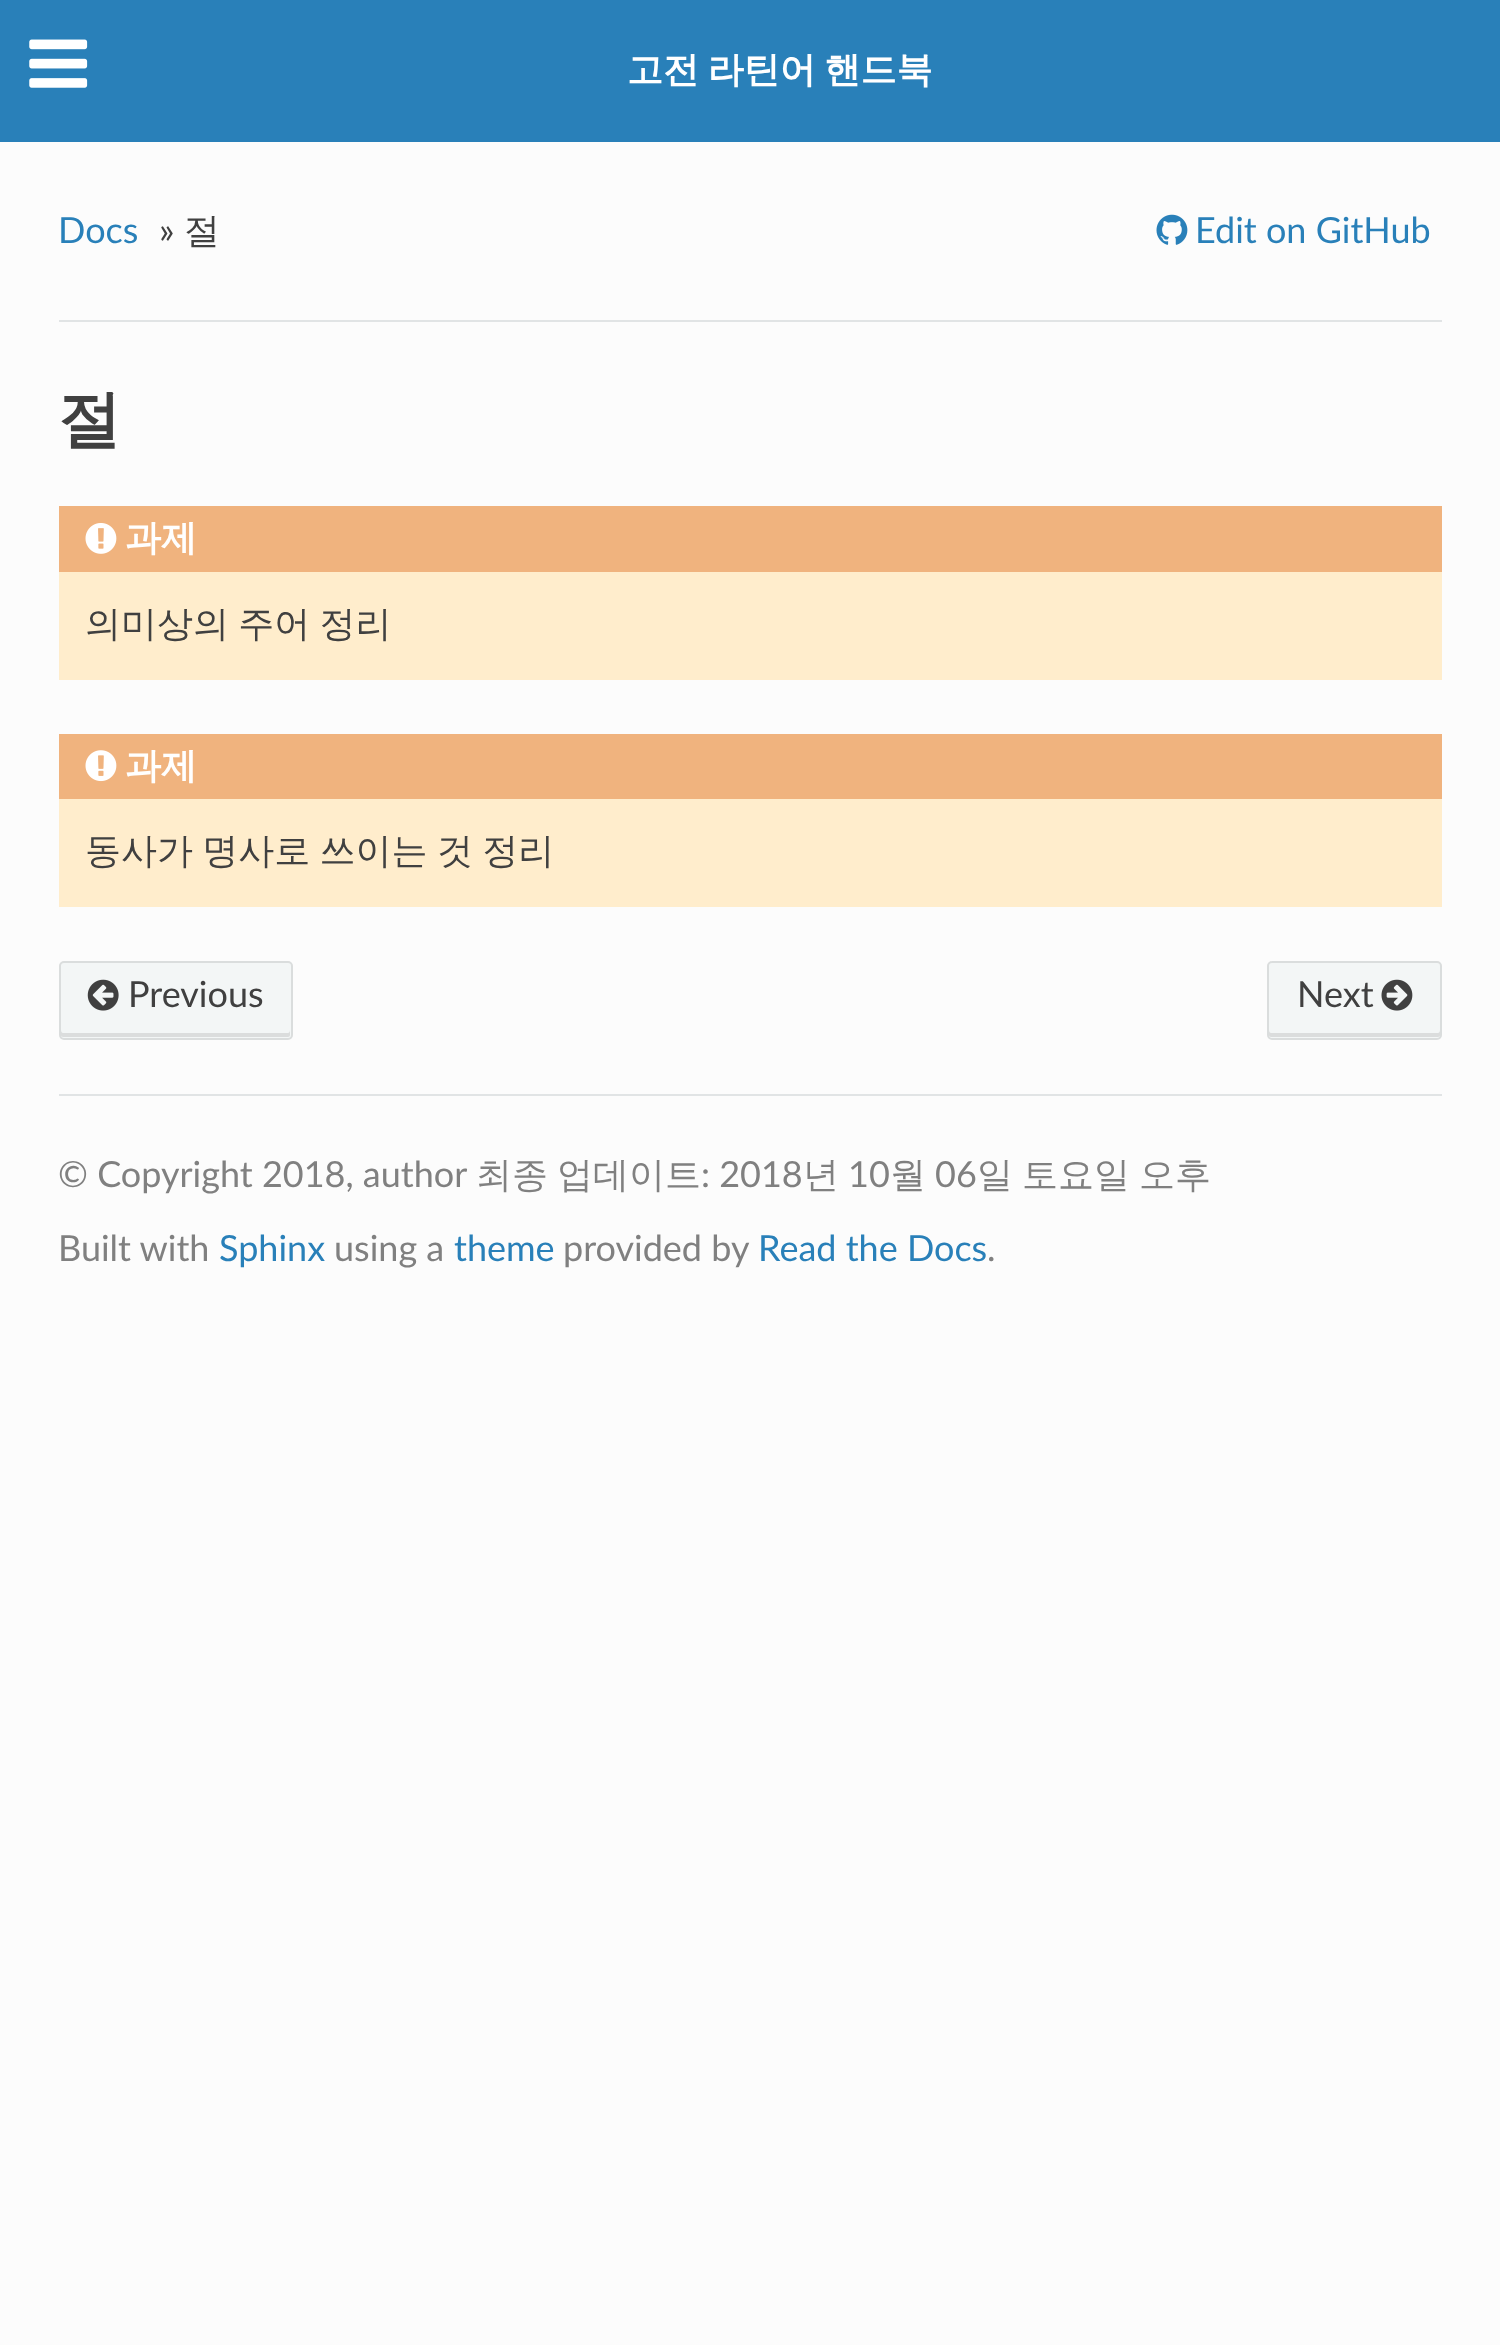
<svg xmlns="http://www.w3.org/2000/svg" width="1500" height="2345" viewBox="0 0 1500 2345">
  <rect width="100%" height="100%" fill="rgb(252,252,252)"/>
  <rect x="0" y="0" width="1500" height="142" fill="rgb(41,128,185)"/>
  <image x="29" y="39" width="59" height="49" href="pic1.png"/>
  <text x="627" y="82" word-spacing="-2" font-family="WenQuanYi Zen Hei" font-size="36" font-weight="bold" fill="rgb(255,255,255)">고전 라틴어 핸드북</text>
  <text x="58" y="243" font-family="Lato" font-size="36" fill="rgb(41,128,185)">Docs</text>
  <text x="159" y="243" font-family="Lato" font-size="36" fill="rgb(64,64,64)">»</text>
  <text x="184" y="243" font-family="WenQuanYi Zen Hei" font-size="36" font-weight="500" fill="rgb(64,64,64)">절</text>
  <image x="1156" y="214" width="32" height="31" href="pic2.png"/>
  <text x="1195" y="243" font-family="Lato" font-size="36" fill="rgb(41,128,185)">Edit on GitHub</text>
  <rect x="59" y="320" width="1383" height="2" fill="rgb(225,228,229)"/>
  <text x="58" y="441" font-family="WenQuanYi Zen Hei" font-size="63" font-weight="bold" fill="rgb(64,64,64)">절</text>
  <rect x="59" y="572" width="1383" height="108" fill="rgb(255,237,204)"/>
  <rect x="59" y="506" width="1383" height="66" fill="rgb(240,179,126)"/>
  <image x="85" y="523" width="32" height="31" href="pic3.png"/>
  <text x="125" y="550" font-family="WenQuanYi Zen Hei" font-size="36" font-weight="bold" fill="rgb(255,255,255)">과제</text>
  <text x="85" y="636" word-spacing="-1.5" font-family="WenQuanYi Zen Hei" font-size="36" font-weight="500" fill="rgb(64,64,64)">의미상의 주어 정리</text>
  <rect x="59" y="799" width="1383" height="108" fill="rgb(255,237,204)"/>
  <rect x="59" y="734" width="1383" height="65" fill="rgb(240,179,126)"/>
  <image x="85" y="750" width="32" height="32" href="pic4.png"/>
  <text x="125" y="778" font-family="WenQuanYi Zen Hei" font-size="36" font-weight="bold" fill="rgb(255,255,255)">과제</text>
  <text x="85" y="863" word-spacing="-1.5" font-family="WenQuanYi Zen Hei" font-size="36" font-weight="500" fill="rgb(64,64,64)">동사가 명사로 쓰이는 것 정리</text>
  <rect x="59" y="961" width="234" height="79" rx="5" fill="rgb(243,246,246)"/>
  <path d="M61 1030V1035C61 1036 62 1037 63 1037H288C289 1037 290 1036 290 1035V1030C290 1032 289 1033 288 1033H63C62 1033 61 1032 61 1030Z" fill="rgb(219,221,221)"/>
  <rect x="60" y="962" width="232" height="77" rx="4" fill="none" stroke="rgba(0,0,0,0.1)" stroke-width="2"/>
  <image x="87" y="979" width="32" height="32" href="pic5.png"/>
  <text x="128" y="1007" font-family="Lato" font-size="36" fill="rgb(64,64,64)">Previous</text>
  <rect x="1267" y="961" width="175" height="79" rx="5" fill="rgb(243,246,246)"/>
  <path d="M1269 1030V1035C1269 1036 1270 1037 1271 1037H1438C1439 1037 1440 1036 1440 1035V1030C1440 1032 1439 1033 1438 1033H1271C1270 1033 1269 1032 1269 1030Z" fill="rgb(219,221,221)"/>
  <rect x="1268" y="962" width="173" height="77" rx="4" fill="none" stroke="rgba(0,0,0,0.1)" stroke-width="2"/>
  <text x="1297" y="1007" font-family="Lato" font-size="36" fill="rgb(64,64,64)">Next</text>
  <image x="1381" y="979" width="32" height="32" href="pic6.png"/>
  <rect x="59" y="1094" width="1383" height="2" fill="rgb(225,228,229)"/>
  <text x="58" y="1187" font-family="Lato" font-size="36" fill="rgb(128,128,128)">© Copyright 2018, author</text>
  <g font-family="WenQuanYi Zen Hei" font-size="36" font-weight="500" fill="rgb(128,128,128)">
    <text x="476" y="1187">최종</text>
    <text x="557" y="1187">업데이트</text>
  </g>
  <text x="701" y="1187" font-family="Lato" font-size="36" fill="rgb(128,128,128)">: 2018</text>
  <text x="803" y="1187" font-family="WenQuanYi Zen Hei" font-size="36" font-weight="500" fill="rgb(128,128,128)">년</text>
  <text x="848" y="1187" font-family="Lato" font-size="36" fill="rgb(128,128,128)">10</text>
  <text x="890" y="1187" font-family="WenQuanYi Zen Hei" font-size="36" font-weight="500" fill="rgb(128,128,128)">월</text>
  <text x="935" y="1187" font-family="Lato" font-size="36" fill="rgb(128,128,128)">06</text>
  <g font-family="WenQuanYi Zen Hei" font-size="36" font-weight="500" fill="rgb(128,128,128)">
    <text x="977" y="1187">일</text>
    <text x="1022" y="1187">토요일</text>
    <text x="1139" y="1187">오후</text>
  </g>
  <text x="58" y="1261" font-family="Lato" font-size="36" fill="rgb(128,128,128)">Built with</text>
  <text x="219" y="1261" font-family="Lato" font-size="36" fill="rgb(41,128,185)">Sphinx</text>
  <text x="334" y="1261" font-family="Lato" font-size="36" fill="rgb(128,128,128)">using a</text>
  <text x="454" y="1261" font-family="Lato" font-size="36" fill="rgb(41,128,185)">theme</text>
  <text x="563" y="1261" font-family="Lato" font-size="36" fill="rgb(128,128,128)">provided by</text>
  <text x="758" y="1261" font-family="Lato" font-size="36" fill="rgb(41,128,185)">Read the Docs</text>
  <text x="987" y="1261" font-family="Lato" font-size="36" fill="rgb(128,128,128)">.</text>
</svg>
